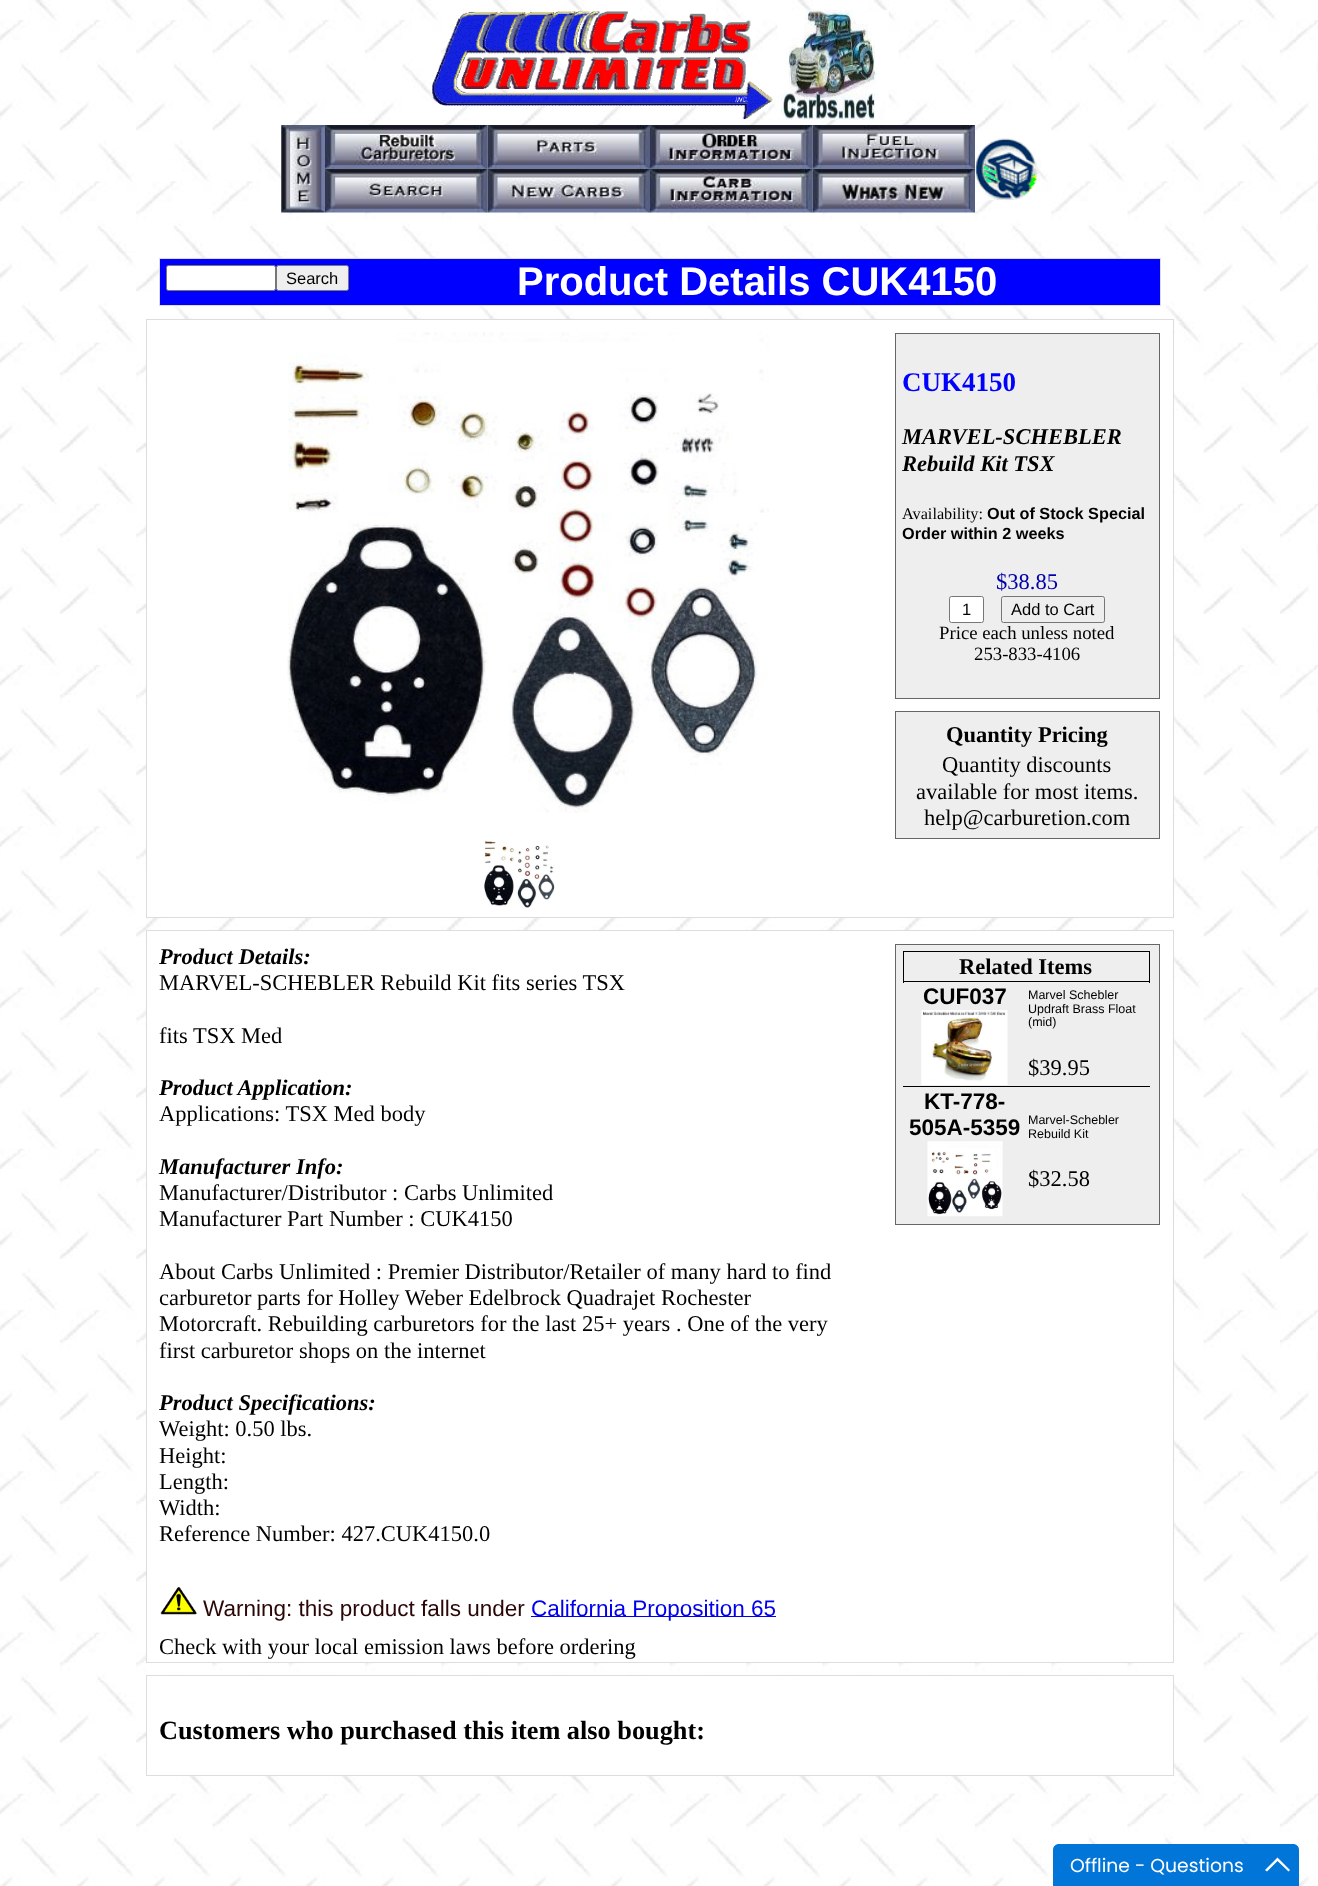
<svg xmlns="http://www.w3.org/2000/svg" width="1318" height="1886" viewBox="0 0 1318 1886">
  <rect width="100%" height="100%" fill="rgb(255,255,255)"/>
  <image x="0" y="0" width="1318" height="1886" href="pic1.png"/>
  <image x="432" y="11" width="341" height="109" href="pic2.png"/>
  <image x="777" y="10" width="112" height="110" href="pic3.png"/>
  <image x="281" y="125" width="44" height="88" href="pic4.png"/>
  <image x="325" y="125" width="163" height="44" href="pic5.png"/>
  <image x="487" y="125" width="163" height="44" href="pic6.png"/>
  <image x="650" y="125" width="163" height="44" href="pic7.png"/>
  <image x="812" y="125" width="163" height="44" href="pic8.png"/>
  <image x="975" y="138" width="63" height="62" href="pic9.png"/>
  <image x="325" y="168" width="163" height="45" href="pic10.png"/>
  <image x="487" y="168" width="163" height="45" href="pic11.png"/>
  <image x="650" y="168" width="163" height="45" href="pic12.png"/>
  <image x="812" y="168" width="163" height="45" href="pic13.png"/>
  <rect x="159.5" y="258.5" width="1001" height="47" fill="rgb(0,0,255)" stroke="rgb(221,221,221)"/>
  <rect x="166.5" y="265.5" width="109" height="25" rx="2" fill="rgb(255,255,255)" stroke="rgb(118,118,118)"/>
  <rect x="276.5" y="265.5" width="72" height="25" rx="2" fill="rgb(239,239,239)" stroke="rgb(118,118,118)"/>
  <text x="286" y="284" font-family="Liberation Sans" font-size="16.5" fill="rgb(0,0,0)">Search</text>
  <text x="517" y="295" font-family="Liberation Sans" font-size="40" font-weight="bold" fill="rgb(255,255,255)">Product Details CUK4150</text>
  <rect x="146.5" y="319.5" width="1027" height="598" fill="rgb(255,255,255)" stroke="rgb(221,221,221)"/>
  <image x="287" y="332" width="482" height="481" href="pic14.png"/>
  <image x="484" y="840" width="71" height="68" href="pic15.png"/>
  <rect x="895.5" y="333.5" width="264" height="365" fill="rgb(238,238,238)" stroke="rgb(102,102,102)"/>
  <text x="902" y="391" font-family="Liberation Serif" font-size="27" font-weight="bold" fill="rgb(0,0,255)">CUK4150</text>
  <g font-family="Liberation Serif" font-size="22.5" font-weight="bold" font-style="italic" fill="rgb(0,0,0)">
    <text>
      <tspan x="902" y="444">MARVEL-SCHEBLER</tspan>
      <tspan x="902" y="471">Rebuild Kit TSX</tspan>
    </text>
  </g>
  <text x="902" y="519" font-family="Liberation Serif" font-size="16.25" fill="rgb(0,0,0)">Availability:</text>
  <g font-family="Liberation Sans" font-size="16.25" font-weight="bold" fill="rgb(0,0,0)">
    <text x="987" y="519">Out of Stock Special</text>
    <text x="902" y="539">Order within 2 weeks</text>
  </g>
  <text x="996" y="589" font-family="Liberation Serif" font-size="22.5" fill="rgb(0,0,170)">$38.85</text>
  <rect x="949.5" y="596.5" width="34" height="26" rx="2" fill="rgb(255,255,255)" stroke="rgb(118,118,118)"/>
  <text x="962" y="615" font-family="Liberation Sans" font-size="16.5" fill="rgb(0,0,0)">1</text>
  <rect x="1001.5" y="596.5" width="103" height="26" rx="2" fill="none" stroke="rgb(118,118,118)"/>
  <text x="1011" y="615" font-family="Liberation Sans" font-size="16.5" fill="rgb(0,0,0)">Add to Cart</text>
  <g font-family="Liberation Serif" font-size="18.75" fill="rgb(0,0,0)">
    <text x="939" y="639">Price each unless noted</text>
    <text x="974" y="660">253-833-4106</text>
  </g>
  <rect x="895.5" y="711.5" width="264" height="127" fill="rgb(238,238,238)" stroke="rgb(102,102,102)"/>
  <text x="946" y="742" font-family="Liberation Serif" font-size="22.5" font-weight="bold" fill="rgb(0,0,0)">Quantity Pricing</text>
  <g font-family="Liberation Serif" font-size="22.5" fill="rgb(0,0,0)">
    <text x="942" y="772">Quantity discounts</text>
    <text x="916" y="799">available for most items.</text>
    <text x="924" y="825">help@carburetion.com</text>
  </g>
  <rect x="146.5" y="930.5" width="1027" height="732" fill="rgb(255,255,255)" stroke="rgb(221,221,221)"/>
  <text x="159" y="964" font-family="Liberation Serif" font-size="22.5" font-weight="bold" font-style="italic" fill="rgb(0,0,0)">Product Details:</text>
  <g font-family="Liberation Serif" font-size="22.5" fill="rgb(0,0,0)">
    <text x="159" y="990">MARVEL-SCHEBLER Rebuild Kit fits series TSX</text>
    <text x="159" y="1043">fits TSX Med</text>
  </g>
  <text x="159" y="1095" font-family="Liberation Serif" font-size="22.5" font-weight="bold" font-style="italic" fill="rgb(0,0,0)">Product Application:</text>
  <text x="159" y="1121" font-family="Liberation Serif" font-size="22.5" fill="rgb(0,0,0)">Applications: TSX Med body</text>
  <text x="159" y="1174" font-family="Liberation Serif" font-size="22.5" font-weight="bold" font-style="italic" fill="rgb(0,0,0)">Manufacturer Info:</text>
  <g font-family="Liberation Serif" font-size="22.5" fill="rgb(0,0,0)">
    <text>
      <tspan x="159" y="1200">Manufacturer/Distributor : Carbs Unlimited</tspan>
      <tspan x="159" y="1226">Manufacturer Part Number : CUK4150</tspan>
    </text>
    <text>
      <tspan x="159" y="1279">About Carbs Unlimited : Premier Distributor/Retailer of many hard to find</tspan>
      <tspan x="159" y="1305">carburetor parts for Holley Weber Edelbrock Quadrajet Rochester</tspan>
      <tspan x="159" y="1331">Motorcraft. Rebuilding carburetors for the last 25+ years . One of the very</tspan>
      <tspan x="159" y="1358">first carburetor shops on the internet</tspan>
    </text>
  </g>
  <text x="159" y="1410" font-family="Liberation Serif" font-size="22.5" font-weight="bold" font-style="italic" fill="rgb(0,0,0)">Product Specifications:</text>
  <g font-family="Liberation Serif" font-size="22.5" fill="rgb(0,0,0)">
    <text>
      <tspan x="159" y="1436">Weight: 0.50 lbs.</tspan>
      <tspan x="159" y="1463">Height:</tspan>
      <tspan x="159" y="1489">Length:</tspan>
      <tspan x="159" y="1515">Width:</tspan>
      <tspan x="159" y="1541">Reference Number: 427.CUK4150.0</tspan>
    </text>
  </g>
  <image x="160" y="1587" width="37" height="28" href="pic16.png"/>
  <text x="203" y="1616" font-family="Liberation Sans" font-size="22.5" fill="rgb(42,6,6)">Warning: this product falls under</text>
  <rect x="531" y="1616" width="245" height="1" fill="rgb(0,0,238)"/>
  <text x="531" y="1616" font-family="Liberation Sans" font-size="22.5" fill="rgb(0,0,238)">California Proposition 65</text>
  <text x="159" y="1654" font-family="Liberation Serif" font-size="22.5" fill="rgb(0,0,0)">Check with your local emission laws before ordering</text>
  <rect x="895.5" y="944.5" width="264" height="280" fill="rgb(238,238,238)" stroke="rgb(102,102,102)"/>
  <rect x="903" y="951" width="247" height="1" fill="rgb(0,0,0)"/>
  <rect x="903" y="981" width="247" height="1" fill="rgb(0,0,0)"/>
  <rect x="1149" y="951" width="1" height="32" fill="rgb(0,0,0)"/>
  <rect x="903" y="951" width="1" height="32" fill="rgb(0,0,0)"/>
  <text x="959" y="974" font-family="Liberation Serif" font-size="22.5" font-weight="bold" fill="rgb(0,0,0)">Related Items</text>
  <text x="923" y="1004" font-family="Liberation Sans" font-size="22.5" font-weight="bold" fill="rgb(0,0,0)">CUF037</text>
  <image x="921" y="1010" width="87" height="75" href="pic17.png"/>
  <g font-family="Liberation Sans" font-size="12.5" fill="rgb(0,0,0)">
    <text>
      <tspan x="1028" y="999">Marvel Schebler</tspan>
      <tspan x="1028" y="1013">Updraft Brass Float</tspan>
      <tspan x="1028" y="1026">(mid)</tspan>
    </text>
  </g>
  <text x="1028" y="1075" font-family="Liberation Serif" font-size="22.5" fill="rgb(0,0,0)">$39.95</text>
  <g font-family="Liberation Sans" font-size="22.5" font-weight="bold" fill="rgb(0,0,0)">
    <text x="924" y="1109">KT-778-</text>
    <text x="909" y="1135">505A-5359</text>
  </g>
  <image x="927" y="1141" width="76" height="76" href="pic18.png"/>
  <rect x="903" y="1086" width="247" height="1" fill="rgb(0,0,0)"/>
  <g font-family="Liberation Sans" font-size="12.5" fill="rgb(0,0,0)">
    <text>
      <tspan x="1028" y="1124">Marvel-Schebler</tspan>
      <tspan x="1028" y="1138">Rebuild Kit</tspan>
    </text>
  </g>
  <text x="1028" y="1186" font-family="Liberation Serif" font-size="22.5" fill="rgb(0,0,0)">$32.58</text>
  <rect x="146.5" y="1675.5" width="1027" height="100" fill="rgb(255,255,255)" stroke="rgb(221,221,221)"/>
  <text x="159" y="1739" font-family="Liberation Serif" font-size="26.3" font-weight="bold" fill="rgb(0,0,0)">Customers who purchased this item also bought:</text>
  <path d="M1059 1844H1293C1296.5 1844 1299 1846.5 1299 1850V1886H1053V1850C1053 1846.5 1055.5 1844 1059 1844Z" fill="rgb(2,117,216)"/>
  <text x="1070" y="1872" font-family="Poppins" font-size="18.75" fill="rgb(255,255,255)">Offline - Questions</text>
  <path d="M1277.5 1857.5L1290 1870L1288.5 1871.5L1277.5 1861L1267 1871.5L1265 1870Z" fill="rgb(255,255,255)"/>
</svg>
